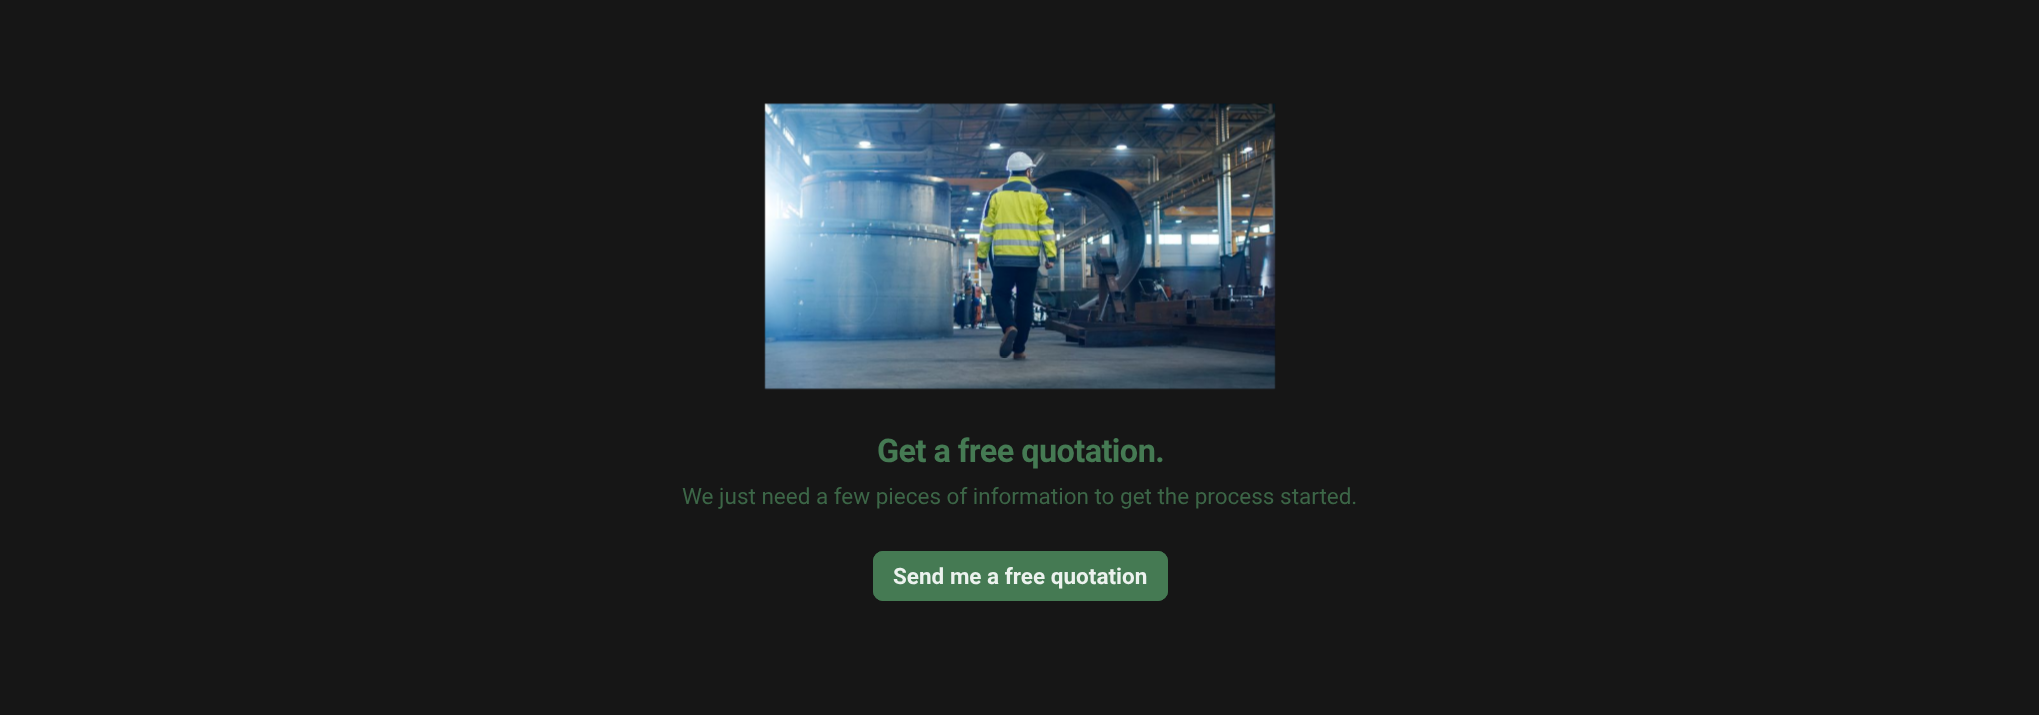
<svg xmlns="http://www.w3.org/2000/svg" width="2039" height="715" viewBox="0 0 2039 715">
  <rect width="100%" height="100%" fill="rgb(22,22,22)"/>
  <image x="764" y="103" width="512" height="287" href="pic1.png"/>
  <text x="877" y="462" font-family="Roboto" font-size="32.5" font-weight="bold" letter-spacing="-0.6" fill="rgb(69,122,83)">Get a free quotation.</text>
  <text x="682" y="504" font-family="Roboto" font-size="22.5" fill="rgb(60,102,71)">We just need a few pieces of information to get the process started.</text>
  <rect x="873.5" y="551.5" width="294" height="49" rx="9.5" fill="none" stroke="rgb(69,122,83)"/>
  <rect x="873" y="551" width="295" height="50" rx="10" fill="rgb(69,122,83)" filter="blur(0.5px)"/>
  <text x="893" y="584" font-family="Roboto" font-size="22.5" font-weight="bold" fill="rgb(236,242,238)">Send me a free quotation</text>
</svg>
